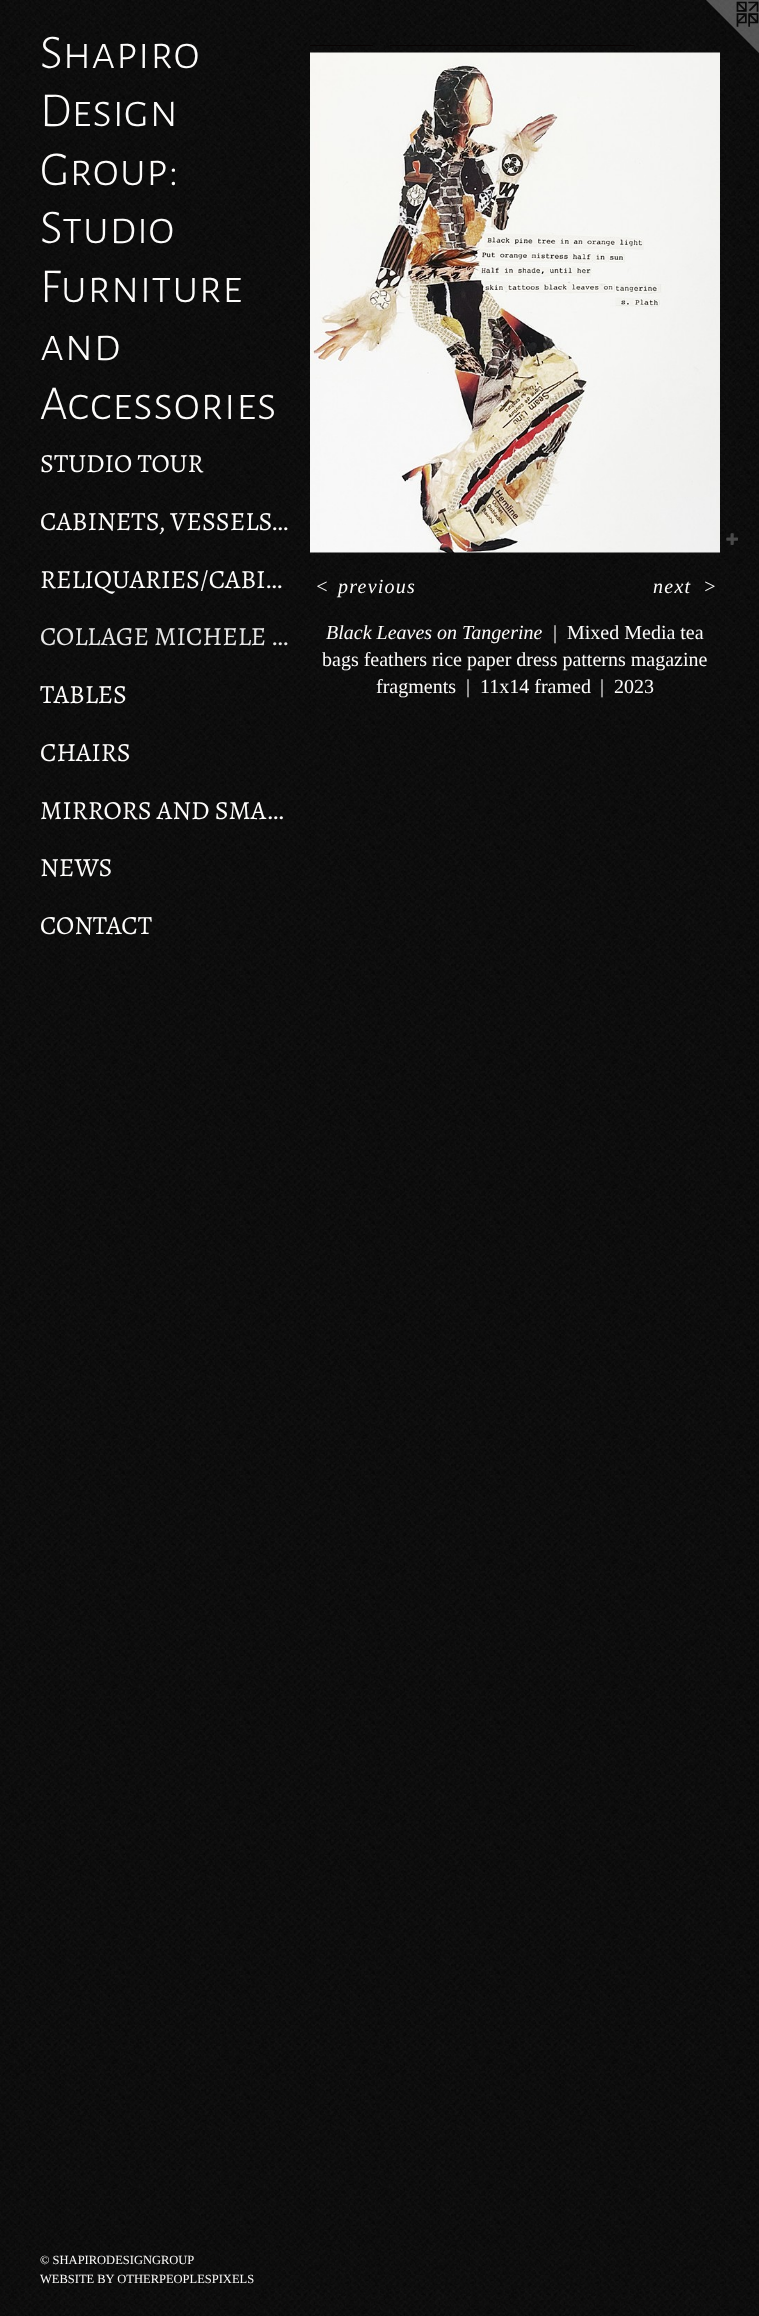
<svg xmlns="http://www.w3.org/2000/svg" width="759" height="2316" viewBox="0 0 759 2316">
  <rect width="100%" height="100%" fill="rgb(255,255,255)"/>
  <image x="0" y="0" width="759" height="2316" href="pic1.png"/>
  <g font-family="Alegreya Sans SC" font-size="48.75" font-weight="300" fill="rgb(253,252,251)">
    <text>
      <tspan x="40" y="68">Shapiro</tspan>
      <tspan x="40" y="126">Design</tspan>
      <tspan x="40" y="185">Group:</tspan>
      <tspan x="40" y="243">Studio</tspan>
      <tspan x="40" y="302">Furniture</tspan>
      <tspan x="40" y="360">and</tspan>
      <tspan x="40" y="419">Accessories</tspan>
    </text>
  </g>
  <g font-family="Alegreya" font-size="26.25" fill="rgb(253,252,251)">
    <text x="40" y="472">STUDIO TOUR</text>
    <text x="40" y="530">CABINETS, VESSELS…</text>
    <text x="40" y="588">RELIQUARIES/CABI…</text>
  </g>
  <text x="40" y="645" font-family="Alegreya" font-size="26.25" fill="rgb(230,230,230)">COLLAGE MICHELE …</text>
  <g font-family="Alegreya" font-size="26.25" fill="rgb(253,252,251)">
    <text x="40" y="703">TABLES</text>
    <text x="40" y="761">CHAIRS</text>
    <text x="40" y="819">MIRRORS AND SMA…</text>
    <text x="40" y="876">NEWS</text>
    <text x="40" y="934">CONTACT</text>
  </g>
  <g font-family="Liberation Serif" font-size="12.5" fill="rgb(253,252,251)">
    <text>
      <tspan x="40" y="2264">© SHAPIRODESIGNGROUP</tspan>
      <tspan x="40" y="2283">WEBSITE BY OTHERPEOPLESPIXELS</tspan>
    </text>
  </g>
  <image x="706" y="0" width="53" height="53" href="pic2.png"/>
  <rect x="310" y="45" width="63" height="1" fill="rgb(8,3,3)"/>
  <rect x="390" y="45" width="244" height="1" fill="rgb(8,3,3)"/>
  <image x="310" y="52" width="410" height="501" href="pic3.png"/>
  <image x="726" y="533" width="12" height="12" href="pic4.png"/>
  <g font-family="Liberation Serif" font-size="20" font-style="italic" letter-spacing="1.25" fill="rgb(253,252,251)">
    <text x="315" y="593">&lt;</text>
    <text x="338" y="593">previous</text>
    <text x="653" y="593">next</text>
    <text x="703" y="593">&gt;</text>
  </g>
  <text x="326" y="639" font-family="Liberation Serif" font-size="20" font-style="italic" fill="rgb(253,252,251)">Black Leaves on Tangerine</text>
  <g font-family="Liberation Serif" font-size="20" fill="rgb(253,252,251)">
    <text x="553" y="639">|</text>
    <text x="567" y="639">Mixed Media tea</text>
    <text x="322" y="666">bags feathers rice paper dress patterns magazine</text>
    <text x="376" y="693">fragments</text>
    <text x="466" y="693">|</text>
    <text x="480" y="693">11x14 framed</text>
    <text x="600" y="693">|</text>
    <text x="614" y="693">2023</text>
  </g>
</svg>
